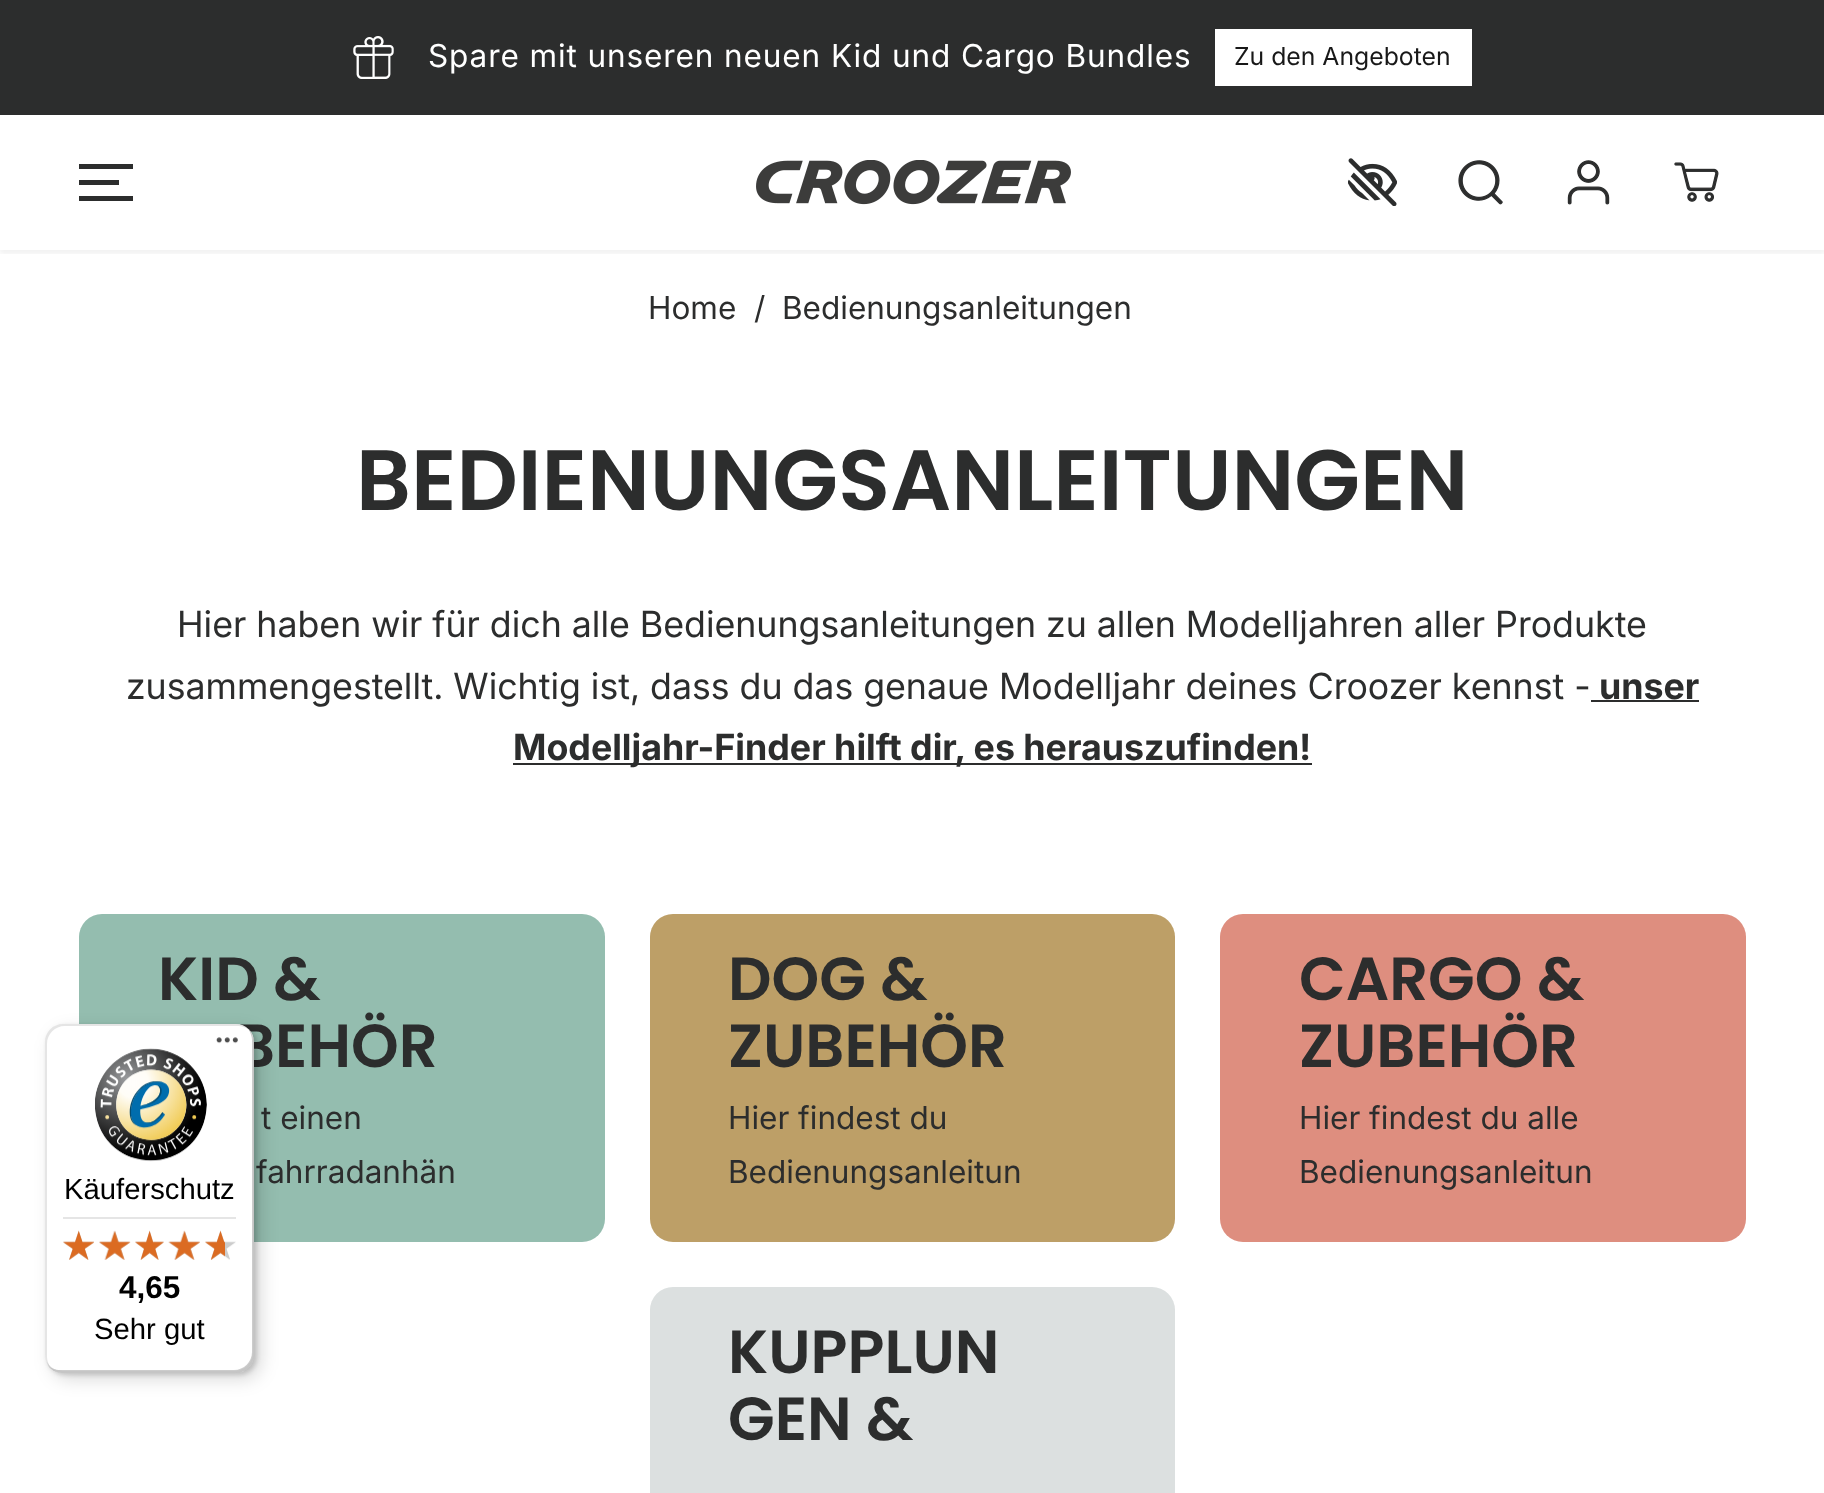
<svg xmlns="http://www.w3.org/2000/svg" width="1824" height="1493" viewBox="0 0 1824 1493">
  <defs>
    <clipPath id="clip1"><rect x="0" y="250" width="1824" height="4"/></clipPath>
  </defs>
  <rect width="100%" height="100%" fill="rgb(255,255,255)"/>
  <rect x="0" y="0" width="1824" height="115" fill="rgb(44,45,45)"/>
  <image x="353" y="36" width="41" height="43" href="pic1.png"/>
  <text x="428" y="67" font-family="Inter" font-size="31.5" letter-spacing="0.9" fill="rgb(255,255,255)">Spare mit unseren neuen Kid und Cargo Bundles</text>
  <rect x="1215" y="29" width="257" height="57" fill="rgb(255,255,255)"/>
  <text x="1234" y="65" font-family="Inter" font-size="24.75" fill="rgb(24,24,24)">Zu den Angeboten</text>
  <g clip-path="url(#clip1)">
    <rect x="0" y="119" width="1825" height="135" fill="rgba(0,0,0,0.05)" filter="blur(2px)"/>
  </g>
  <rect x="79" y="180" width="40" height="5" fill="rgb(44,45,45)"/>
  <rect x="79" y="164" width="54" height="5" fill="rgb(44,45,45)"/>
  <rect x="79" y="196" width="54" height="5" fill="rgb(44,45,45)"/>
  <image x="756" y="160" width="315" height="45" href="pic2.png"/>
  <image x="1348" y="158" width="49" height="48" href="pic3.png"/>
  <image x="1458" y="160" width="45" height="45" href="pic4.png"/>
  <image x="1567" y="160" width="43" height="45" href="pic5.png"/>
  <image x="1674" y="162" width="45" height="40" href="pic6.png"/>
  <g font-family="Inter" font-size="31.5" fill="rgb(44,45,45)">
    <text x="648" y="319">Home</text>
    <text x="754" y="319">/</text>
    <text x="782" y="319">Bedienungsanleitungen</text>
  </g>
  <text x="356" y="510" font-family="Poppins" font-size="85.5" font-weight="600" fill="rgb(44,45,45)">BEDIENUNGSANLEITUNGEN</text>
  <g font-family="'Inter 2'" font-size="36" fill="rgb(44,45,45)">
    <text x="177" y="637">Hier haben wir für dich alle Bedienungsanleitungen zu allen Modelljahren aller Produkte</text>
    <text x="126" y="699">zusammengestellt. Wichtig ist, dass du das genaue Modelljahr deines Croozer kennst -</text>
  </g>
  <text x="1599" y="699" font-family="Inter" font-size="36" font-weight="bold" fill="rgb(44,45,45)">unser</text>
  <rect x="1591" y="700" width="108" height="2" fill="rgb(44,45,45)"/>
  <rect x="513" y="763" width="799" height="2" fill="rgb(44,45,45)"/>
  <text x="513" y="760" font-family="Inter" font-size="36" font-weight="bold" fill="rgb(44,45,45)">Modelljahr-Finder hilft dir, es herauszufinden!</text>
  <rect x="79" y="914" width="526" height="328" rx="23" fill="rgb(148,189,175)"/>
  <g font-family="Poppins" font-size="60.75" font-weight="600" fill="rgb(44,45,45)">
    <text x="158" y="1000">KID &amp;</text>
    <text x="236" y="1067">BEHÖR</text>
  </g>
  <g font-family="Inter" font-size="31.5" fill="rgb(44,45,45)">
    <text x="261" y="1129">t einen</text>
    <text x="256" y="1183">fahrradanhän</text>
  </g>
  <rect x="650" y="914" width="525" height="328" rx="23" fill="rgb(189,159,103)"/>
  <g font-family="Poppins" font-size="60.75" font-weight="600" fill="rgb(44,45,45)">
    <text>
      <tspan x="728" y="1000">DOG &amp;</tspan>
      <tspan x="728" y="1067">ZUBEHÖR</tspan>
    </text>
  </g>
  <g font-family="Inter" font-size="31.5" fill="rgb(44,45,45)">
    <text>
      <tspan x="728" y="1129">Hier findest du</tspan>
      <tspan x="728" y="1183">Bedienungsanleitun</tspan>
    </text>
  </g>
  <rect x="1220" y="914" width="526" height="328" rx="23" fill="rgb(222,142,127)"/>
  <g font-family="Poppins" font-size="60.75" font-weight="600" fill="rgb(44,45,45)">
    <text>
      <tspan x="1299" y="1000">CARGO &amp;</tspan>
      <tspan x="1299" y="1067">ZUBEHÖR</tspan>
    </text>
  </g>
  <g font-family="Inter" font-size="31.5" fill="rgb(44,45,45)">
    <text>
      <tspan x="1299" y="1129">Hier findest du alle</tspan>
      <tspan x="1299" y="1183">Bedienungsanleitun</tspan>
    </text>
  </g>
  <rect x="650" y="1287" width="525" height="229" rx="23" fill="rgb(220,224,224)"/>
  <g font-family="Poppins" font-size="60.75" font-weight="600" fill="rgb(44,45,45)">
    <text>
      <tspan x="728" y="1373">KUPPLUN</tspan>
      <tspan x="728" y="1440">GEN &amp;</tspan>
    </text>
  </g>
  <rect x="52" y="1031" width="209" height="348" rx="18" fill="rgba(0,0,0,0.15)" filter="blur(9px)"/>
  <rect x="47" y="1026" width="210" height="349" rx="18" fill="rgba(0,0,0,0.15)" filter="blur(2px)"/>
  <rect x="45" y="1024" width="209" height="349" rx="18" fill="rgb(255,255,255)"/>
  <path d="M65 1026H238C242 1026 246 1028 250 1030C246 1026 241 1024 236 1024H63C53 1024 45 1032 45 1042V1355C45 1360 47 1365 51 1369C49 1365 47 1361 47 1357V1044C47 1034 55 1026 65 1026Z" fill="rgba(0,0,0,0.1)"/>
  <path d="M47 1364C50 1369 56 1373 63 1373H236C246 1373 254 1365 254 1355V1042C254 1037 252 1032 248 1028C250 1032 252 1036 252 1040V1352C252 1362 244 1370 234 1370H61C55 1370 50 1368 47 1364Z" fill="rgba(0,0,0,0.2)"/>
  <path d="M47 1362C49 1369 56 1373 63 1373H236C246 1373 254 1365 254 1355V1042C254 1039 253 1036 252 1033C253 1035 253 1038 253 1040V1353C253 1363 245 1371 235 1371H62C55 1371 50 1367 47 1362Z" fill="rgba(50,50,50,0.2)"/>
  <path d="M47 1362C49 1369 56 1373 63 1373H236C246 1373 254 1365 254 1355V1042C254 1037 252 1032 249 1029C251 1032 253 1036 253 1041V1353C253 1363 245 1371 235 1371H62C55 1371 50 1367 47 1362Z" fill="rgba(255,255,255,0.3)"/>
  <image x="216" y="1037" width="22" height="7" href="pic7.png"/>
  <image x="95" y="1048" width="112" height="114" href="pic8.png"/>
  <text x="64" y="1199" font-family="Liberation Sans" font-size="29.25" fill="rgb(0,0,0)">Käuferschutz</text>
  <rect x="63" y="1217" width="173" height="2" fill="rgb(229,229,229)"/>
  <image x="63" y="1231" width="31" height="29" href="pic14.png"/>
  <image x="63" y="1230" width="31" height="30" href="pic9.png"/>
  <image x="99" y="1231" width="31" height="29" href="pic15.png"/>
  <image x="99" y="1230" width="32" height="30" href="pic10.png"/>
  <image x="135" y="1231" width="29" height="29" href="pic16.png"/>
  <image x="135" y="1230" width="29" height="30" href="pic11.png"/>
  <image x="168" y="1231" width="32" height="29" href="pic17.png"/>
  <image x="168" y="1230" width="32" height="30" href="pic12.png"/>
  <image x="205" y="1231" width="31" height="29" href="pic18.png"/>
  <image x="205" y="1230" width="20" height="30" href="pic13.png"/>
  <text x="119" y="1298" font-family="Liberation Sans" font-size="31.5" font-weight="bold" fill="rgb(0,0,0)">4,65</text>
  <text x="94" y="1339" font-family="Liberation Sans" font-size="29.25" fill="rgb(0,0,0)">Sehr gut</text>
</svg>
